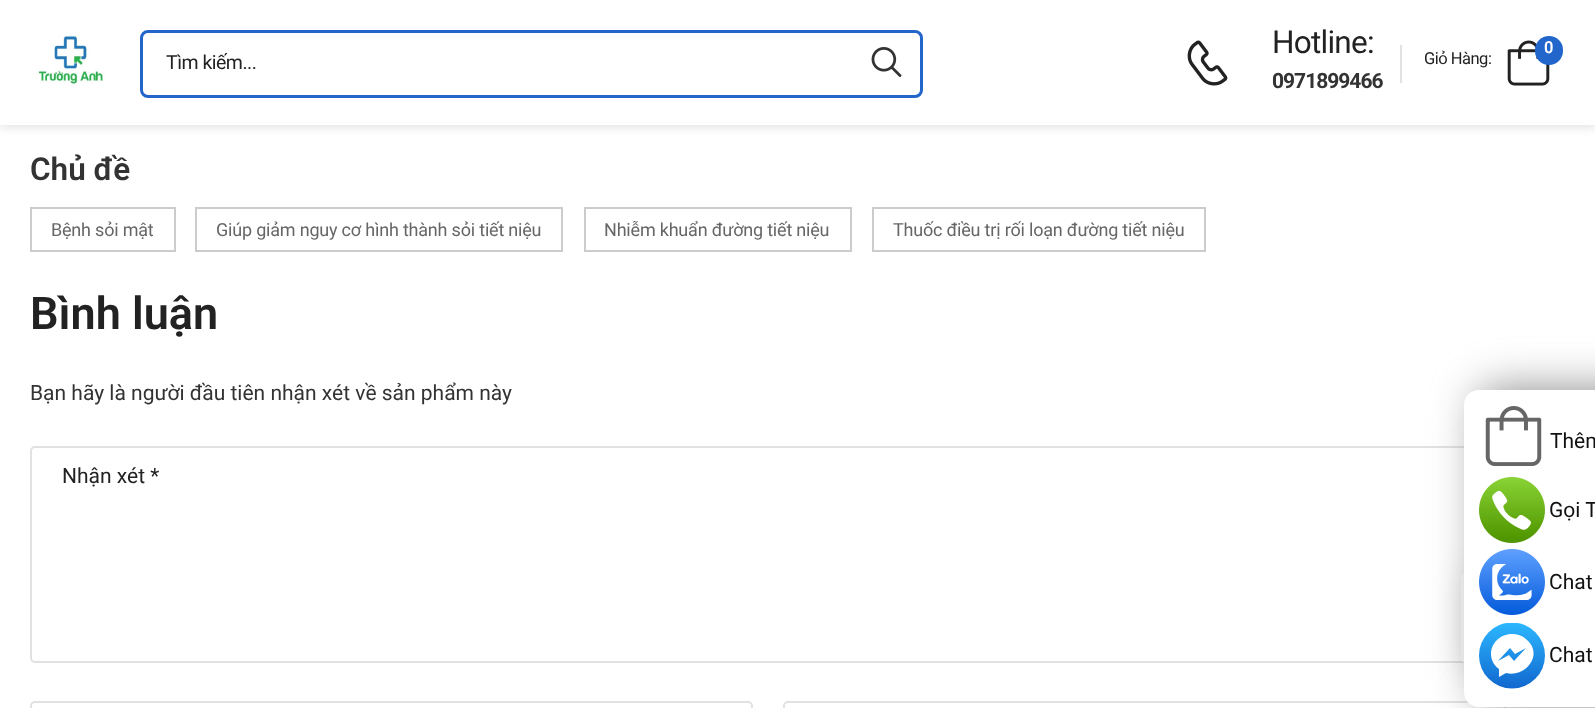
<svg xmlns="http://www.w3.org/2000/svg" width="1595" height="708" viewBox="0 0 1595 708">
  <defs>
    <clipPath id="clip1"><rect x="1479" y="623" width="66" height="66"/></clipPath>
    <linearGradient id="g1" gradientUnits="userSpaceOnUse" x1="1511" y1="688" x2="1511" y2="623"><stop offset="0" stop-color="rgb(17,104,207)"/><stop offset="1" stop-color="rgb(44,183,255)"/></linearGradient>
  </defs>
  <rect width="100%" height="100%" fill="rgb(255,255,255)"/>
  <rect x="0" y="3" width="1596" height="125" fill="rgba(0,0,0,0.1)" filter="blur(4px)"/>
  <rect x="0" y="0" width="1595" height="125" fill="rgb(255,255,255)"/>
  <image x="38" y="34" width="68" height="50" href="pic1.png"/>
  <rect x="141.5" y="31.5" width="780" height="65" rx="6.5" fill="none" stroke="rgb(34,102,204)" stroke-width="3"/>
  <text x="166" y="69" font-family="Roboto" font-size="19.5" letter-spacing="-0.5" fill="rgb(34,34,34)">Tìm kiếm...</text>
  <image x="871" y="47" width="31" height="30" href="pic2.png"/>
  <image x="1187" y="40" width="41" height="46" href="pic3.png"/>
  <text x="1272" y="53" font-family="Roboto" font-size="31.5" letter-spacing="-0.75" fill="rgb(34,34,34)">Hotline:</text>
  <text x="1272" y="88" font-family="Roboto" font-size="21" font-weight="bold" letter-spacing="-1" fill="rgb(51,51,51)">0971899466</text>
  <rect x="1400" y="45" width="2" height="38" fill="rgb(225,225,225)"/>
  <image x="1507" y="40" width="43" height="46" href="pic4.png"/>
  <rect x="1535" y="36" width="28" height="29" rx="14" fill="rgb(34,102,204)"/>
  <text x="1544" y="53" font-family="Roboto" font-size="16.5" font-weight="600" letter-spacing="-0.5" fill="rgb(255,255,255)">0</text>
  <text x="1424" y="64" font-family="Roboto" font-size="16.5" letter-spacing="-0.5" fill="rgb(34,34,34)">Giỏ Hàng:</text>
  <text x="30" y="180" font-family="Roboto" font-size="31.5" font-weight="600" fill="rgb(51,51,51)">Chủ đề</text>
  <rect x="31" y="208" width="144" height="43" fill="none" stroke="rgb(204,204,204)" stroke-width="2"/>
  <text x="51" y="236" font-family="Roboto" font-size="18" letter-spacing="-0.2" fill="rgb(102,102,102)">Bệnh sỏi mật</text>
  <rect x="196" y="208" width="366" height="43" fill="none" stroke="rgb(204,204,204)" stroke-width="2"/>
  <text x="216" y="236" font-family="Roboto" font-size="18" letter-spacing="-0.2" fill="rgb(102,102,102)">Giúp giảm nguy cơ hình thành sỏi tiết niệu</text>
  <rect x="585" y="208" width="266" height="43" fill="none" stroke="rgb(204,204,204)" stroke-width="2"/>
  <text x="604" y="236" font-family="Roboto" font-size="18" letter-spacing="-0.2" fill="rgb(102,102,102)">Nhiễm khuẩn đường tiết niệu</text>
  <rect x="873" y="208" width="332" height="43" fill="none" stroke="rgb(204,204,204)" stroke-width="2"/>
  <text x="893" y="236" font-family="Roboto" font-size="18" letter-spacing="-0.2" fill="rgb(102,102,102)">Thuốc điều trị rối loạn đường tiết niệu</text>
  <text x="30" y="329" font-family="Roboto" font-size="45" font-weight="600" fill="rgb(34,34,34)">Bình luận</text>
  <text x="30" y="400" font-family="Roboto" font-size="21" fill="rgb(51,51,51)">Bạn hãy là người đầu tiên nhận xét về sản phẩm này</text>
  <rect x="31" y="447" width="1474" height="215" rx="4" fill="none" stroke="rgb(225,225,225)" stroke-width="2"/>
  <text x="62" y="483" font-family="Roboto" font-size="21" fill="rgb(34,34,34)">Nhận xét *</text>
  <rect x="31" y="702" width="721" height="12" rx="4" fill="none" stroke="rgb(225,225,225)" stroke-width="2"/>
  <rect x="784" y="702" width="721" height="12" rx="4" fill="none" stroke="rgb(225,225,225)" stroke-width="2"/>
  <rect x="1461" y="573" width="90" height="90" rx="5" fill="rgba(0,0,0,0.1)" filter="blur(15px)"/>
  <rect x="1461" y="573" width="90" height="90" rx="5" fill="rgb(255,255,255)"/>
  <rect x="1479" y="390" width="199" height="317" rx="15" fill="rgb(136,136,136)" filter="blur(22.5px)"/>
  <path d="M1479 390H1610V707H1479C1470.5 707 1464 700.5 1464 692V405C1464 396.5 1470.5 390 1479 390Z" fill="rgb(255,255,255)"/>
  <image x="1485" y="406" width="57" height="60" href="pic5.png"/>
  <text x="1550" y="448" font-family="Roboto" font-size="21" fill="rgb(17,17,17)">Thêm</text>
  <image x="1479" y="477" width="66" height="66" href="pic6.png"/>
  <text x="1549" y="517" font-family="Roboto" font-size="21" fill="rgb(17,17,17)">Gọi T</text>
  <image x="1479" y="549" width="66" height="66" href="pic7.png"/>
  <text x="1549" y="589" font-family="Roboto" font-size="21" fill="rgb(17,17,17)">Chat</text>
  <g clip-path="url(#clip1)">
    <circle cx="1512" cy="655.5" r="33" fill="url(#g1)"/>
  </g>
  <path d="M1512 634C1493 634 1483 657 1499 669V677L1506 673C1525 678 1544 655 1527 640C1523 636 1518 634 1512 634ZM1514 661L1509 655L1498 661L1510 648L1515 654L1526 648Z" fill="rgb(255,255,255)" fill-rule="evenodd"/>
  <text x="1549" y="662" font-family="Roboto" font-size="21" fill="rgb(17,17,17)">Chat</text>
</svg>
